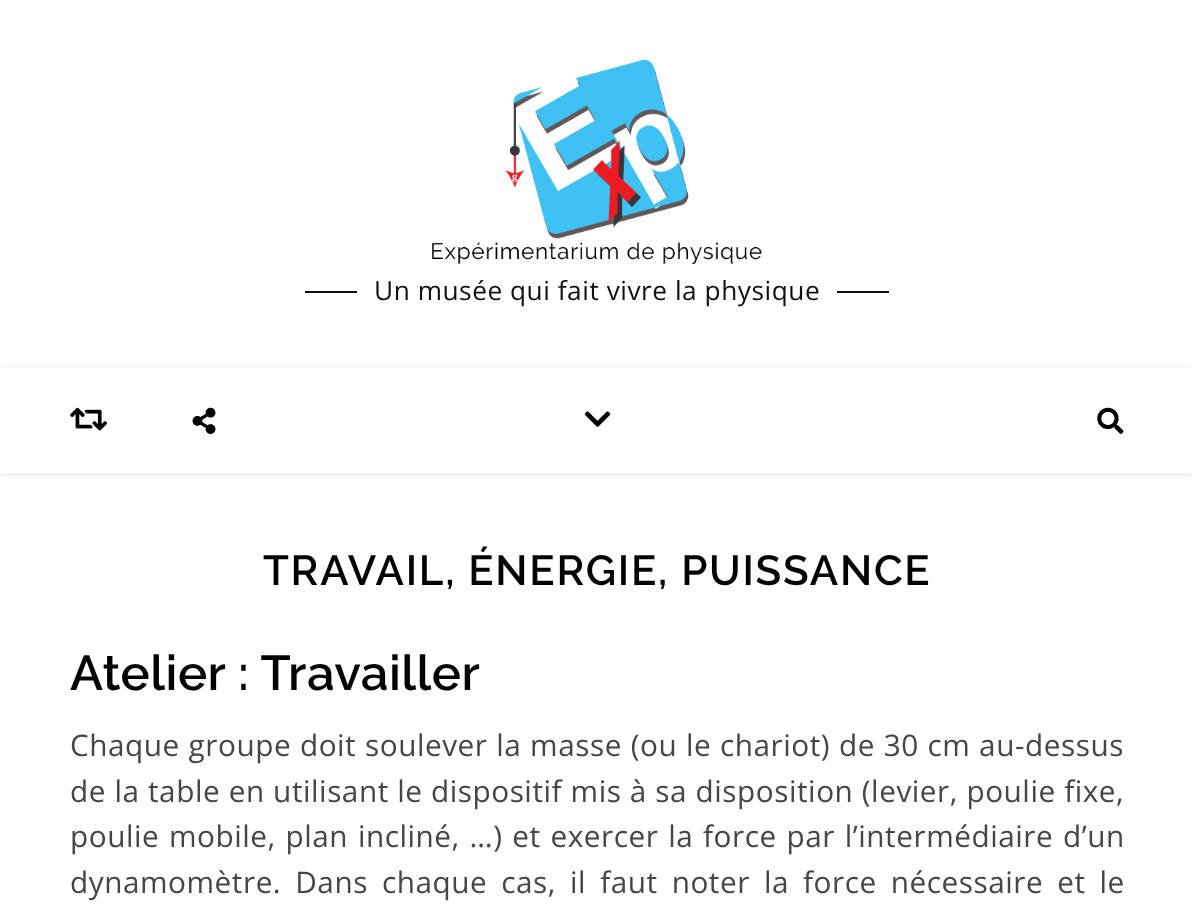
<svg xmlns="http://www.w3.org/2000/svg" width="1192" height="919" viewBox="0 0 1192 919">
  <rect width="100%" height="100%" fill="rgb(255,255,255)"/>
  <image x="432" y="59" width="330" height="205" href="pic1.png"/>
  <rect x="305" y="291" width="52" height="2" fill="rgb(17,17,17)"/>
  <text x="374" y="300" font-family="Open Sans" font-size="26.25" letter-spacing="0.53" fill="rgb(17,17,17)">Un musée qui fait vivre la physique</text>
  <rect x="837" y="291" width="52" height="2" fill="rgb(17,17,17)"/>
  <rect x="0" y="369" width="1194" height="105" fill="rgba(0,0,0,0.1)" filter="blur(4.5px)"/>
  <rect x="0" y="368" width="1192" height="105" fill="rgb(255,255,255)"/>
  <image x="70" y="407" width="37" height="24" href="pic2.png"/>
  <image x="192" y="407" width="24" height="27" href="pic3.png"/>
  <image x="584" y="411" width="27" height="16" href="pic4.png"/>
  <image x="1097" y="407" width="27" height="27" href="pic5.png"/>
  <text x="263" y="585" font-family="Raleway" font-size="42" font-weight="600" letter-spacing="1.75" fill="rgb(3,3,3)">TRAVAIL, ÉNERGIE, PUISSANCE</text>
  <text x="70" y="690" font-family="Raleway" font-size="49" font-weight="600" letter-spacing="0.53" fill="rgb(3,3,3)">Atelier : Travailler</text>
  <g font-family="Open Sans" font-size="29.75" letter-spacing="0.53" fill="rgb(70,70,70)">
    <text>
      <tspan x="70" y="756" word-spacing="0.5">Chaque groupe doit soulever la masse (ou le chariot) de 30 cm au-dessus</tspan>
      <tspan x="70" y="802" word-spacing="0.2">de la table en utilisant le dispositif mis à sa disposition (levier, poulie fixe,</tspan>
      <tspan x="70" y="847" word-spacing="1.5">poulie mobile, plan incliné, …) et exercer la force par l’intermédiaire d’un</tspan>
      <tspan x="70" y="893" word-spacing="5.75">dynamomètre. Dans chaque cas, il faut noter la force nécessaire et le</tspan>
    </text>
  </g>
</svg>
